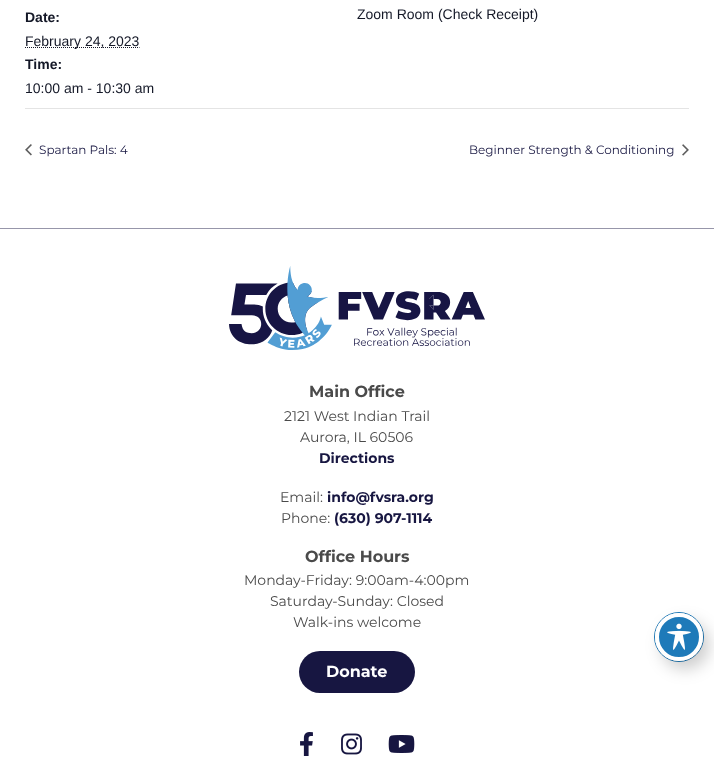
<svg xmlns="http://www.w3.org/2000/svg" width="714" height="782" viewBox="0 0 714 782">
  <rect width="100%" height="100%" fill="rgb(255,255,255)"/>
  <text x="25" y="22" font-family="Liberation Sans" font-size="14" font-weight="bold" fill="rgb(20,24,39)">Date:</text>
  <path d="M25 47.5H139.5" fill="none" stroke="rgb(20,24,39)" stroke-dasharray="1 1"/>
  <text x="25" y="46" font-family="Liberation Sans" font-size="14" fill="rgb(20,24,39)">February 24, 2023</text>
  <text x="25" y="69" font-family="Liberation Sans" font-size="14" font-weight="bold" fill="rgb(20,24,39)">Time:</text>
  <g font-family="Liberation Sans" font-size="14" fill="rgb(20,24,39)">
    <text x="25" y="93">10:00 am - 10:30 am</text>
    <text x="357" y="19">Zoom Room (Check Receipt)</text>
  </g>
  <rect x="25" y="108" width="664" height="1" fill="rgb(228,228,228)"/>
  <image x="25" y="144" width="7" height="12" href="pic1.png"/>
  <g font-family="Montserrat" font-size="12" fill="rgb(23,22,65)">
    <text x="39" y="154">Spartan Pals: 4</text>
    <text x="469" y="154">Beginner Strength &amp; Conditioning</text>
  </g>
  <image x="682" y="144" width="7" height="12" href="pic2.png"/>
  <rect x="0" y="228" width="714" height="1" fill="rgb(151,150,170)"/>
  <image x="229" y="266" width="256" height="84" href="pic3.png"/>
  <text x="309" y="397" font-family="Montserrat" font-size="16" font-weight="bold" fill="rgb(74,74,74)">Main Office</text>
  <g font-family="Montserrat" font-size="14" fill="rgb(74,74,74)">
    <text x="284" y="421">2121 West Indian Trail</text>
    <text x="300" y="442">Aurora, IL 60506</text>
  </g>
  <text x="319" y="463" font-family="Montserrat" font-size="14" font-weight="bold" fill="rgb(23,22,65)">Directions</text>
  <text x="280" y="502" font-family="Montserrat" font-size="14" fill="rgb(74,74,74)">Email:</text>
  <text x="327" y="502" font-family="Montserrat" font-size="14" font-weight="bold" fill="rgb(23,22,65)">info@fvsra.org</text>
  <text x="281" y="523" font-family="Montserrat" font-size="14" fill="rgb(74,74,74)">Phone:</text>
  <text x="334" y="523" font-family="Montserrat" font-size="14" font-weight="bold" fill="rgb(23,22,65)">(630) 907-1114</text>
  <text x="305" y="562" font-family="Montserrat" font-size="16" font-weight="bold" fill="rgb(74,74,74)">Office Hours</text>
  <g font-family="Montserrat" font-size="14" fill="rgb(74,74,74)">
    <text x="244" y="585">Monday-Friday: 9:00am-4:00pm</text>
    <text x="270" y="606">Saturday-Sunday: Closed</text>
    <text x="293" y="627">Walk-ins welcome</text>
  </g>
  <rect x="299" y="651" width="116" height="42" rx="21" fill="rgb(23,22,65)"/>
  <text x="326" y="677" font-family="Montserrat" font-size="16" font-weight="bold" fill="rgb(255,255,255)">Donate</text>
  <image x="300" y="732" width="13" height="24" href="pic4.png"/>
  <image x="341" y="733" width="21" height="22" href="pic5.png"/>
  <image x="388" y="735" width="27" height="18" href="pic6.png"/>
  <circle cx="679" cy="637" r="24.5" fill="none" stroke="rgb(30,122,185)"/>
  <rect x="661" y="621" width="48" height="48" rx="24" fill="rgba(0,0,0,0.2)" filter="blur(8px)"/>
  <circle cx="679" cy="637" r="22" fill="rgb(30,122,185)" stroke="rgb(255,255,255)" stroke-width="4"/>
  <image x="667" y="623" width="24" height="27" href="pic7.png"/>
</svg>
